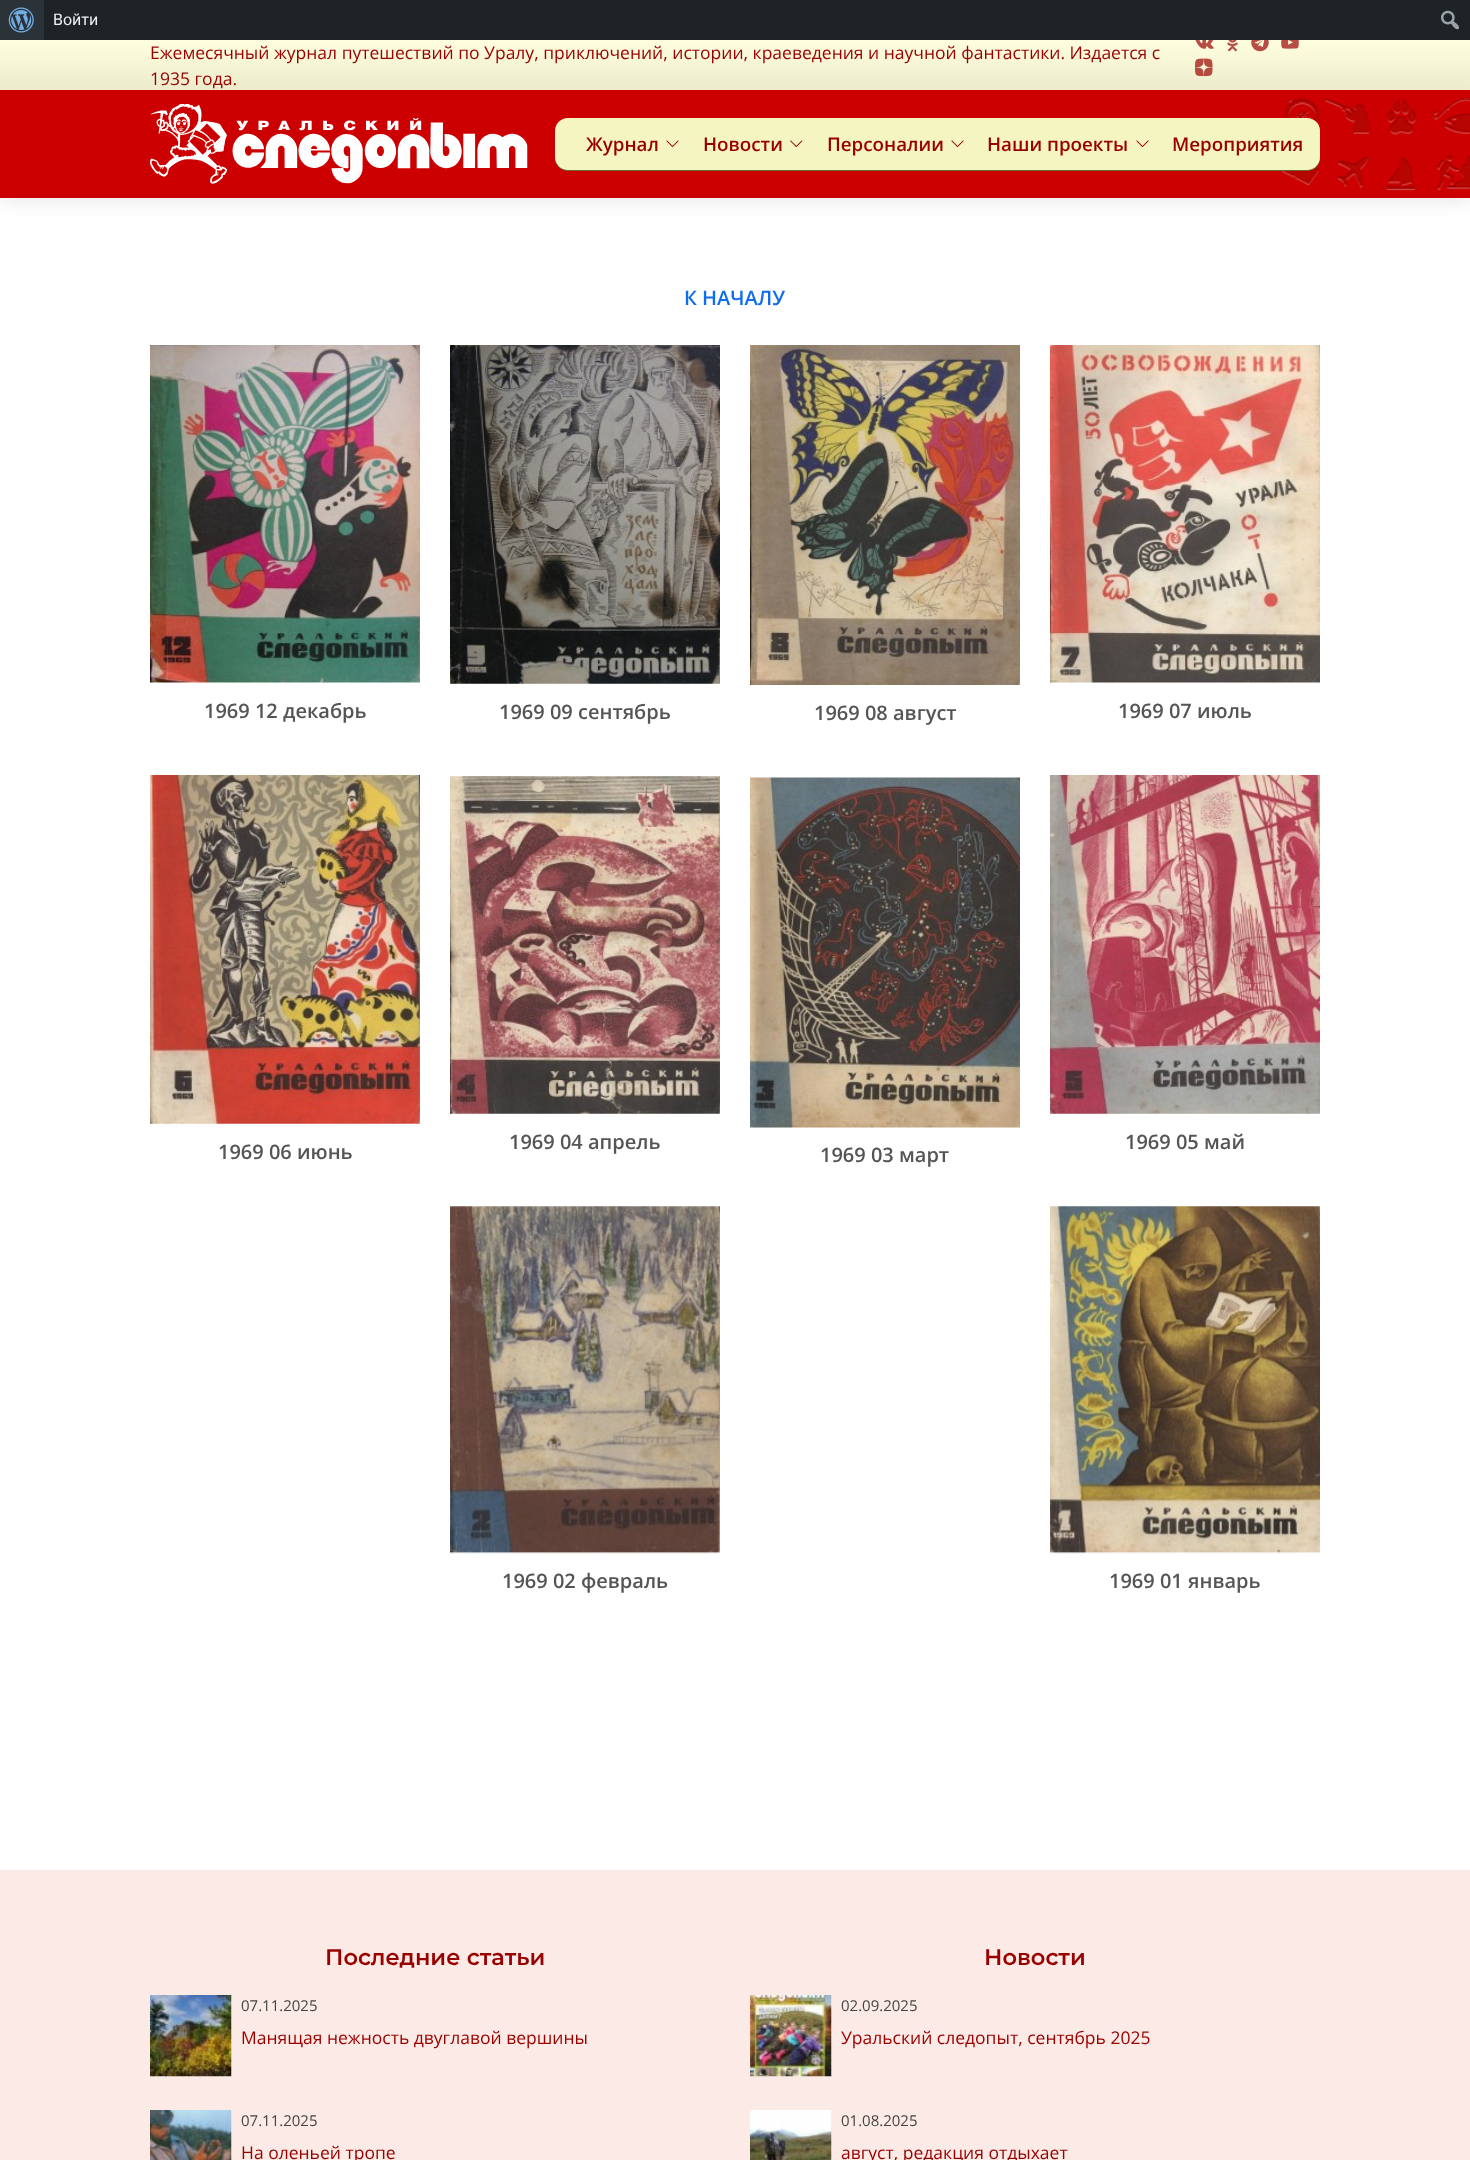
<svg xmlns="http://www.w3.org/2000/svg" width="1470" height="2160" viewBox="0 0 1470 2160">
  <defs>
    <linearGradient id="g1" gradientUnits="userSpaceOnUse" x1="735" y1="40" x2="735" y2="90"><stop offset="0" stop-color="rgb(255,255,224)"/><stop offset="1" stop-color="rgb(236,236,205)"/></linearGradient>
  </defs>
  <rect width="100%" height="100%" fill="rgb(255,255,255)"/>
  <rect x="44" y="0" width="1426" height="40" fill="rgb(29,35,39)"/>
  <rect x="0" y="0" width="44" height="40" fill="rgb(44,51,56)"/>
  <image x="8" y="7" width="26" height="26" href="pic1.png"/>
  <text x="53" y="25" font-family="Roboto" font-size="16" fill="rgb(240,240,241)">Войти</text>
  <image x="1441" y="10" width="18" height="20" href="pic2.png"/>
  <rect x="0" y="93" width="1470" height="107" fill="rgba(0,0,0,0.1)" filter="blur(9.5px)"/>
  <rect x="0" y="40" width="1470" height="50" fill="url(#g1)"/>
  <g font-family="Open Sans" font-size="17.5" fill="rgb(153,0,0)">
    <text>
      <tspan x="150" y="59">Ежемесячный журнал путешествий по Уралу, приключений, истории, краеведения и научной фантастики. Издается с</tspan>
      <tspan x="150" y="85">1935 года.</tspan>
    </text>
  </g>
  <image x="1195" y="40" width="19" height="9" href="pic3.png"/>
  <image x="1227" y="40" width="11" height="12" href="pic4.png"/>
  <image x="1251" y="40" width="18" height="12" href="pic5.png"/>
  <image x="1281" y="40" width="18" height="9" href="pic6.png"/>
  <image x="1195" y="58" width="18" height="19" href="pic7.png"/>
  <rect x="0" y="90" width="1470" height="108" fill="rgb(204,0,0)"/>
  <image x="1281" y="98" width="189" height="93" href="pic8.png"/>
  <image x="150" y="104" width="378" height="80" href="pic9.png"/>
  <rect x="555" y="119" width="765" height="52" rx="13" fill="rgb(102,102,51)" filter="blur(0.5px)"/>
  <rect x="555" y="118" width="765" height="52" rx="13" fill="rgb(245,245,194)"/>
  <text x="586" y="151" font-family="Open Sans" font-size="18.75" font-weight="600" fill="rgb(153,0,0)">Журнал</text>
  <image x="666" y="140" width="13" height="7" href="pic10.png"/>
  <text x="703" y="151" font-family="Open Sans" font-size="18.75" font-weight="600" fill="rgb(153,0,0)">Новости</text>
  <image x="790" y="140" width="13" height="7" href="pic11.png"/>
  <text x="827" y="151" font-family="Open Sans" font-size="18.75" font-weight="600" fill="rgb(153,0,0)">Персоналии</text>
  <image x="951" y="140" width="13" height="7" href="pic10.png"/>
  <text x="987" y="151" font-family="Open Sans" font-size="18.75" font-weight="600" fill="rgb(153,0,0)">Наши проекты</text>
  <image x="1136" y="140" width="13" height="7" href="pic10.png"/>
  <text x="1172" y="151" font-family="Open Sans" font-size="18.75" font-weight="600" fill="rgb(153,0,0)">Мероприятия</text>
  <text x="684" y="305" font-family="Open Sans" font-size="20" font-weight="600" fill="rgb(16,110,234)">К НАЧАЛУ</text>
  <image x="150" y="345" width="270" height="338" href="pic12.png"/>
  <text x="204" y="718" font-family="Open Sans" font-size="20" font-weight="600" fill="rgb(85,85,85)">1969 12 декабрь</text>
  <image x="450" y="345" width="270" height="339" href="pic13.png"/>
  <text x="499" y="719" font-family="Open Sans" font-size="20" font-weight="600" fill="rgb(85,85,85)">1969 09 сентябрь</text>
  <image x="750" y="345" width="270" height="340" href="pic14.png"/>
  <text x="814" y="720" font-family="Open Sans" font-size="20" font-weight="600" fill="rgb(85,85,85)">1969 08 август</text>
  <image x="1050" y="345" width="270" height="338" href="pic15.png"/>
  <text x="1118" y="718" font-family="Open Sans" font-size="20" font-weight="600" fill="rgb(85,85,85)">1969 07 июль</text>
  <image x="150" y="775" width="270" height="349" href="pic16.png"/>
  <text x="218" y="1159" font-family="Open Sans" font-size="20" font-weight="600" fill="rgb(85,85,85)">1969 06 июнь</text>
  <image x="450" y="776" width="270" height="338" href="pic17.png"/>
  <text x="509" y="1149" font-family="Open Sans" font-size="20" font-weight="600" fill="rgb(85,85,85)">1969 04 апрель</text>
  <image x="750" y="777" width="270" height="351" href="pic18.png"/>
  <text x="820" y="1162" font-family="Open Sans" font-size="20" font-weight="600" fill="rgb(85,85,85)">1969 03 март</text>
  <image x="1050" y="775" width="270" height="339" href="pic19.png"/>
  <text x="1125" y="1149" font-family="Open Sans" font-size="20" font-weight="600" fill="rgb(85,85,85)">1969 05 май</text>
  <image x="450" y="1206" width="270" height="348" href="pic20.png"/>
  <text x="502" y="1588" font-family="Open Sans" font-size="20" font-weight="600" fill="rgb(85,85,85)">1969 02 февраль</text>
  <image x="1050" y="1206" width="270" height="348" href="pic21.png"/>
  <text x="1109" y="1588" font-family="Open Sans" font-size="20" font-weight="600" fill="rgb(85,85,85)">1969 01 январь</text>
  <rect x="0" y="1870" width="1470" height="290" fill="rgb(251,234,229)"/>
  <text x="325" y="1965" font-family="Montserrat" font-size="22.5" font-weight="600" fill="rgb(153,0,0)">Последние статьи</text>
  <image x="150" y="1995" width="82" height="82" href="pic22.png"/>
  <text x="241" y="2011" font-family="Open Sans" font-size="15" fill="rgb(68,68,68)">07.11.2025</text>
  <text x="241" y="2044" font-family="Open Sans" font-size="17.5" fill="rgb(153,0,0)">Манящая нежность двуглавой вершины</text>
  <image x="150" y="2110" width="82" height="50" href="pic23.png"/>
  <text x="241" y="2126" font-family="Open Sans" font-size="15" fill="rgb(68,68,68)">07.11.2025</text>
  <text x="241" y="2159" font-family="Open Sans" font-size="17.5" fill="rgb(153,0,0)">На оленьей тропе</text>
  <text x="984" y="1965" font-family="Montserrat" font-size="22.5" font-weight="600" fill="rgb(153,0,0)">Новости</text>
  <image x="750" y="1995" width="82" height="82" href="pic24.png"/>
  <text x="841" y="2011" font-family="Open Sans" font-size="15" fill="rgb(68,68,68)">02.09.2025</text>
  <text x="841" y="2044" font-family="Open Sans" font-size="17.5" fill="rgb(153,0,0)">Уральский следопыт, сентябрь 2025</text>
  <image x="750" y="2110" width="82" height="50" href="pic25.png"/>
  <text x="841" y="2126" font-family="Open Sans" font-size="15" fill="rgb(68,68,68)">01.08.2025</text>
  <text x="841" y="2159" font-family="Open Sans" font-size="17.5" fill="rgb(153,0,0)">август, редакция отдыхает</text>
</svg>
